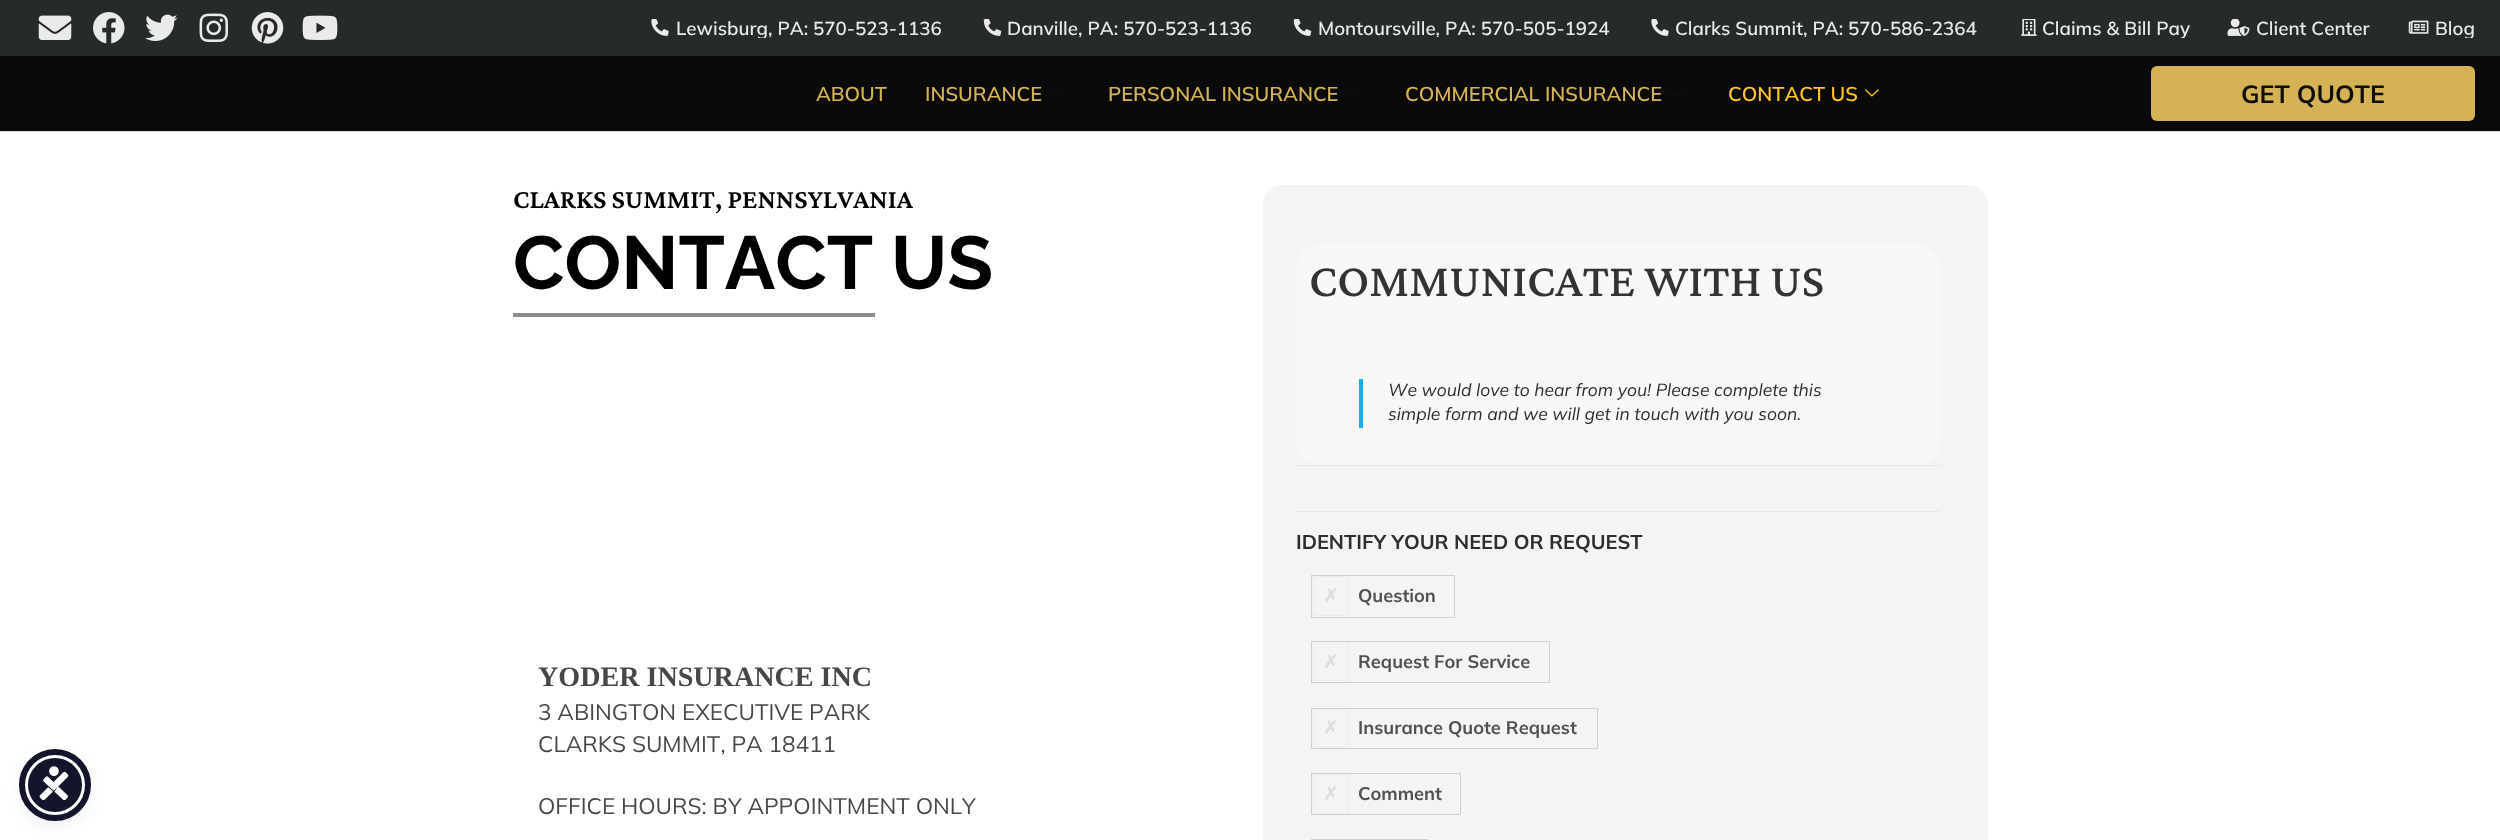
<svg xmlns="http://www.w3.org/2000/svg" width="2500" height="840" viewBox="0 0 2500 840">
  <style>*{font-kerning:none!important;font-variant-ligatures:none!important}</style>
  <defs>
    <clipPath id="clip1"><rect x="450" y="19" width="2025" height="19"/></clipPath>
  </defs>
  <rect width="100%" height="100%" fill="rgb(255,255,255)"/>
  <rect x="25" y="758" width="60" height="60" rx="30" fill="rgba(93,100,148,0.2)" filter="blur(2.5px)"/>
  <rect x="25" y="761" width="60" height="60" rx="30" fill="rgba(37,44,97,0.15)" filter="blur(9.5px)"/>
  <circle cx="55" cy="785" r="28.5" fill="rgb(20,20,42)" stroke="rgb(255,255,255)" stroke-width="3"/>
  <circle cx="55" cy="785" r="33" fill="none" stroke="rgb(20,20,42)" stroke-width="6"/>
  <image x="39" y="766" width="30" height="34" href="pic1.png"/>
  <rect x="0" y="0" width="2500" height="56" fill="rgb(38,42,43)"/>
  <image x="38" y="15" width="34" height="25" href="pic2.png"/>
  <image x="93" y="12" width="32" height="32" href="pic3.png"/>
  <image x="145" y="14" width="33" height="27" href="pic4.png"/>
  <image x="199" y="13" width="30" height="29" href="pic5.png"/>
  <image x="251" y="12" width="33" height="32" href="pic6.png"/>
  <image x="302" y="15" width="36" height="25" href="pic7.png"/>
  <image x="651" y="19" width="18" height="17" href="pic8.png"/>
  <g clip-path="url(#clip1)">
    <text x="676" y="35" font-family="'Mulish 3'" font-size="18.75" font-weight="200" fill="rgb(234,234,234)">Lewisburg, PA: 570-523-1136</text>
  </g>
  <image x="983" y="19" width="19" height="17" href="pic9.png"/>
  <text x="1007" y="35" font-family="'Mulish 3'" font-size="18.75" font-weight="200" fill="rgb(234,234,234)">Danville, PA: 570-523-1136</text>
  <image x="1293" y="19" width="19" height="17" href="pic9.png"/>
  <text x="1318" y="35" font-family="'Mulish 3'" font-size="18.75" font-weight="200" fill="rgb(234,234,234)">Montoursville, PA: 570-505-1924</text>
  <image x="1651" y="19" width="18" height="17" href="pic8.png"/>
  <text x="1675" y="35" font-family="'Mulish 3'" font-size="18.75" font-weight="200" fill="rgb(234,234,234)">Clarks Summit, PA: 570-586-2364</text>
  <image x="2021" y="19" width="16" height="17" href="pic10.png"/>
  <g clip-path="url(#clip1)">
    <text x="2042" y="35" font-family="'Mulish 3'" font-size="18.75" font-weight="200" fill="rgb(234,234,234)">Claims &amp; Bill Pay</text>
  </g>
  <image x="2227" y="19" width="23" height="17" href="pic11.png"/>
  <text x="2256" y="35" font-family="'Mulish 3'" font-size="18.75" font-weight="200" fill="rgb(234,234,234)">Client Center</text>
  <image x="2408" y="20" width="21" height="14" href="pic12.png"/>
  <g clip-path="url(#clip1)">
    <text x="2435" y="35" font-family="'Mulish 3'" font-size="18.75" font-weight="200" fill="rgb(234,234,234)">Blog</text>
  </g>
  <rect x="0" y="56" width="2500" height="75" fill="rgb(10,10,10)"/>
  <rect x="0" y="131" width="2500" height="1" fill="rgb(216,216,216)"/>
  <g font-family="'Mulish 3'" font-size="20" font-weight="200" fill="rgb(213,178,85)">
    <text x="816" y="101">ABOUT</text>
    <text x="925" y="101">INSURANCE</text>
  </g>
  <image x="1049" y="90" width="13" height="6" href="pic13.png"/>
  <text x="1108" y="101" font-family="'Mulish 3'" font-size="20" font-weight="200" fill="rgb(213,178,85)">PERSONAL INSURANCE</text>
  <image x="1347" y="90" width="13" height="6" href="pic14.png"/>
  <text x="1405" y="101" font-family="'Mulish 3'" font-size="20" font-weight="200" fill="rgb(213,178,85)">COMMERCIAL INSURANCE</text>
  <image x="1669" y="90" width="13" height="6" href="pic13.png"/>
  <text x="1728" y="101" font-family="'Mulish 3'" font-size="20" font-weight="200" fill="rgb(255,196,40)">CONTACT US</text>
  <image x="1865" y="89" width="14" height="8" href="pic15.png"/>
  <rect x="2151" y="66" width="324" height="55" rx="6" fill="rgb(213,178,85)"/>
  <text x="2241" y="103" font-family="'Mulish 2'" font-size="25" font-weight="200" fill="rgb(14,14,14)">GET QUOTE</text>
  <text x="513" y="208" font-family="Crimson Pro" font-size="27.5" font-weight="600" fill="rgb(0,0,0)">CLARKS SUMMIT, PENNSYLVANIA</text>
  <text x="513" y="289" font-family="Raleway" font-size="75" font-weight="bold" fill="rgb(0,0,0)">CONTACT US</text>
  <rect x="513" y="313" width="362" height="4" fill="rgb(140,140,140)"/>
  <text x="538" y="686" font-family="Liberation Serif" font-size="28.1" font-weight="bold" fill="rgb(71,71,71)">YODER INSURANCE INC</text>
  <g font-family="Mulish" font-size="22.5" font-weight="200" fill="rgb(71,71,71)">
    <text>
      <tspan x="538" y="720">3 ABINGTON EXECUTIVE PARK</tspan>
      <tspan x="538" y="752">CLARKS SUMMIT, PA 18411</tspan>
    </text>
    <text x="538" y="814">OFFICE HOURS: BY APPOINTMENT ONLY</text>
  </g>
  <rect x="1263" y="185" width="725" height="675" rx="20" fill="rgb(244,244,244)"/>
  <rect x="1296" y="244" width="644" height="222" rx="25" fill="rgb(248,248,248)"/>
  <rect x="1296" y="465" width="645" height="1" fill="rgb(233,233,233)"/>
  <text x="1309" y="296" font-family="Crimson Pro" font-size="47.5" font-weight="500" fill="rgb(51,51,51)">COMMUNICATE WITH US</text>
  <rect x="1359" y="379" width="4" height="49" fill="rgb(19,175,240)"/>
  <g font-family="Mulish" font-size="17.5" font-weight="200" font-style="italic" fill="rgb(45,45,45)">
    <text>
      <tspan x="1388" y="396">We would love to hear from you! Please complete this</tspan>
      <tspan x="1388" y="420">simple form and we will get in touch with you soon.</tspan>
    </text>
  </g>
  <rect x="1296" y="511" width="644" height="1" fill="rgb(233,233,233)"/>
  <text x="1296" y="549" font-family="'Mulish 2'" font-size="20" font-weight="200" fill="rgb(45,45,45)">IDENTIFY YOUR NEED OR REQUEST</text>
  <rect x="1311.5" y="575.5" width="143" height="42" fill="none" stroke="rgb(208,208,208)"/>
  <rect x="1313.5" y="576.5" width="35" height="39" fill="none" stroke="rgb(237,237,237)"/>
  <text x="1323" y="602" font-family="DejaVu Sans" font-size="18.25" font-weight="bold" fill="rgb(221,221,221)">✗︎</text>
  <text x="1358" y="602" font-family="'Mulish 2'" font-size="18.25" font-weight="200" fill="rgb(81,81,81)">Question</text>
  <rect x="1311.5" y="641.5" width="238" height="41" fill="none" stroke="rgb(208,208,208)"/>
  <rect x="1313.5" y="643.5" width="35" height="37" fill="none" stroke="rgb(237,237,237)"/>
  <text x="1323" y="668" font-family="DejaVu Sans" font-size="18.25" font-weight="bold" fill="rgb(221,221,221)">✗︎</text>
  <text x="1358" y="668" font-family="'Mulish 2'" font-size="18.25" font-weight="200" fill="rgb(81,81,81)">Request For Service</text>
  <rect x="1311.5" y="708.5" width="286" height="40" fill="none" stroke="rgb(208,208,208)"/>
  <rect x="1313.5" y="709.5" width="35" height="38" fill="none" stroke="rgb(237,237,237)"/>
  <text x="1323" y="734" font-family="DejaVu Sans" font-size="18.25" font-weight="bold" fill="rgb(221,221,221)">✗︎</text>
  <text x="1358" y="734" font-family="'Mulish 2'" font-size="18.25" font-weight="200" fill="rgb(81,81,81)">Insurance Quote Request</text>
  <rect x="1311.5" y="773.5" width="149" height="41" fill="none" stroke="rgb(208,208,208)"/>
  <rect x="1313.5" y="774.5" width="35" height="39" fill="none" stroke="rgb(237,237,237)"/>
  <text x="1323" y="800" font-family="DejaVu Sans" font-size="18.25" font-weight="bold" fill="rgb(221,221,221)">✗︎</text>
  <text x="1358" y="800" font-family="'Mulish 2'" font-size="18.25" font-weight="200" fill="rgb(81,81,81)">Comment</text>
  <rect x="1311.5" y="839.5" width="116" height="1" fill="none" stroke="rgb(208,208,208)"/>
</svg>
